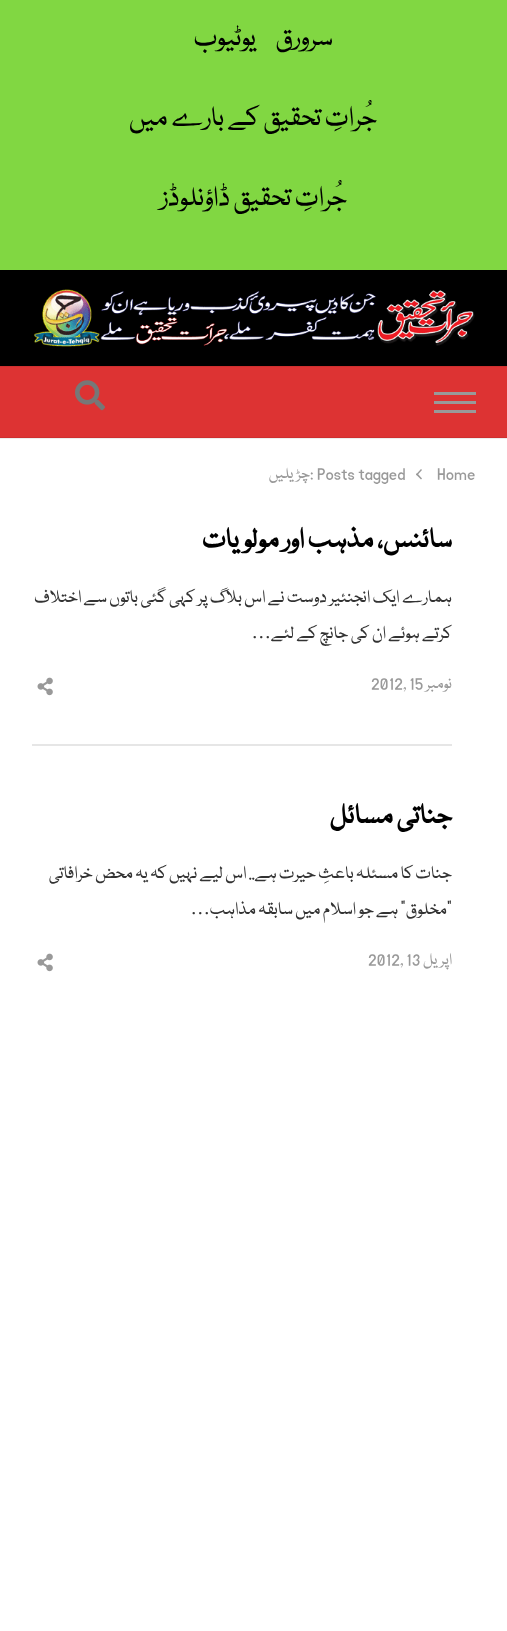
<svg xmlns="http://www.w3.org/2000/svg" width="507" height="1631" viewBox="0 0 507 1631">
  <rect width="100%" height="100%" fill="rgb(255,255,255)"/>
  <rect x="0" y="438" width="507" height="1" fill="rgb(237,237,237)"/>
  <rect x="0" y="0" width="507" height="270" fill="rgb(129,215,66)"/>
  <g font-family="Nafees" font-size="30" direction="rtl" fill="rgb(0,0,0)">
    <text x="333" y="45">سرورق</text>
    <text x="256" y="45">یوٹیوب</text>
    <text x="377" y="125">جُراتِ تحقیق کے بارے میں</text>
    <text x="347" y="205">جُراتِ تحقیق ڈاؤنلوڈز</text>
  </g>
  <rect x="0" y="270" width="507" height="96" fill="rgb(0,0,0)"/>
  <image x="34" y="289" width="441" height="58" href="pic1.png"/>
  <rect x="0" y="367" width="507" height="70" fill="rgb(221,51,51)"/>
  <rect x="0" y="366" width="507" height="1" fill="rgb(206,47,47)"/>
  <rect x="0" y="437" width="507" height="1" fill="rgb(206,47,47)"/>
  <rect x="434" y="401" width="42" height="3" fill="rgb(153,153,153)"/>
  <rect x="434" y="392" width="42" height="3" fill="rgb(153,153,153)"/>
  <rect x="434" y="410" width="42" height="3" fill="rgb(153,153,153)"/>
  <image x="75" y="380" width="30" height="31" href="pic2.png"/>
  <text x="437" y="478" font-family="Nafees" font-size="17.5" fill="rgb(153,153,153)">Home</text>
  <path d="M417 473L422 478.5L421 479.5L416 474.5Z" fill="rgb(153,153,153)"/>
  <path d="M421 469L422 470L417 475.5L416 474.5Z" fill="rgb(153,153,153)"/>
  <text x="310" y="478" font-family="Nafees" font-size="17.5" fill="rgb(153,153,153)">: Posts tagged</text>
  <text x="310" y="478" font-family="Nafees" font-size="17.5" direction="rtl" fill="rgb(153,153,153)">چڑیلیں</text>
  <text x="452" y="547" font-family="Nafees" font-size="30" font-weight="bold" direction="rtl" fill="rgb(0,0,0)">سائنس، مذہب اور مولویات</text>
  <g font-family="Nafees" font-size="19.5" direction="rtl" fill="rgb(51,51,51)">
    <text>
      <tspan x="452" y="602">ہمارے ایک انجنئیر دوست نے اس بلاگ پر کہی گئی باتوں سے اختلاف</tspan>
      <tspan x="452" y="638">کرتے ہوئے ان کی جانچ کے لئے</tspan>
    </text>
  </g>
  <text x="271" y="638" font-family="Liberation Serif" font-size="19.5" direction="rtl" fill="rgb(51,51,51)">…</text>
  <text x="452" y="688" font-family="Nafees" font-size="17.5" direction="rtl" fill="rgb(153,153,153)">نومبر</text>
  <g font-family="Nafees" font-size="17.5" fill="rgb(153,153,153)">
    <text x="409" y="688">15</text>
    <text x="371" y="688">2012,</text>
  </g>
  <image x="37" y="677" width="16" height="19" href="pic3.png"/>
  <rect x="32" y="744" width="420" height="2" fill="rgb(230,230,230)"/>
  <text x="452" y="823" font-family="Nafees" font-size="30" font-weight="bold" direction="rtl" fill="rgb(0,0,0)">جناتی مسائل</text>
  <g font-family="Nafees" font-size="19.5" direction="rtl" fill="rgb(51,51,51)">
    <text>
      <tspan x="452" y="878">جنات کا مسئلہ باعثِ حیرت ہے.. اس لیے نہیں کہ یہ محض خرافاتی</tspan>
      <tspan x="452" y="914">"مخلوق” ہے جو اسلام میں سابقہ مذاہب</tspan>
    </text>
  </g>
  <text x="210" y="914" font-family="Liberation Serif" font-size="19.5" direction="rtl" fill="rgb(51,51,51)">…</text>
  <text x="452" y="964" font-family="Nafees" font-size="17.5" direction="rtl" fill="rgb(153,153,153)">اپریل</text>
  <g font-family="Nafees" font-size="17.5" fill="rgb(153,153,153)">
    <text x="406" y="964">13</text>
    <text x="368" y="964">2012,</text>
  </g>
  <image x="37" y="953" width="16" height="19" href="pic3.png"/>
</svg>
